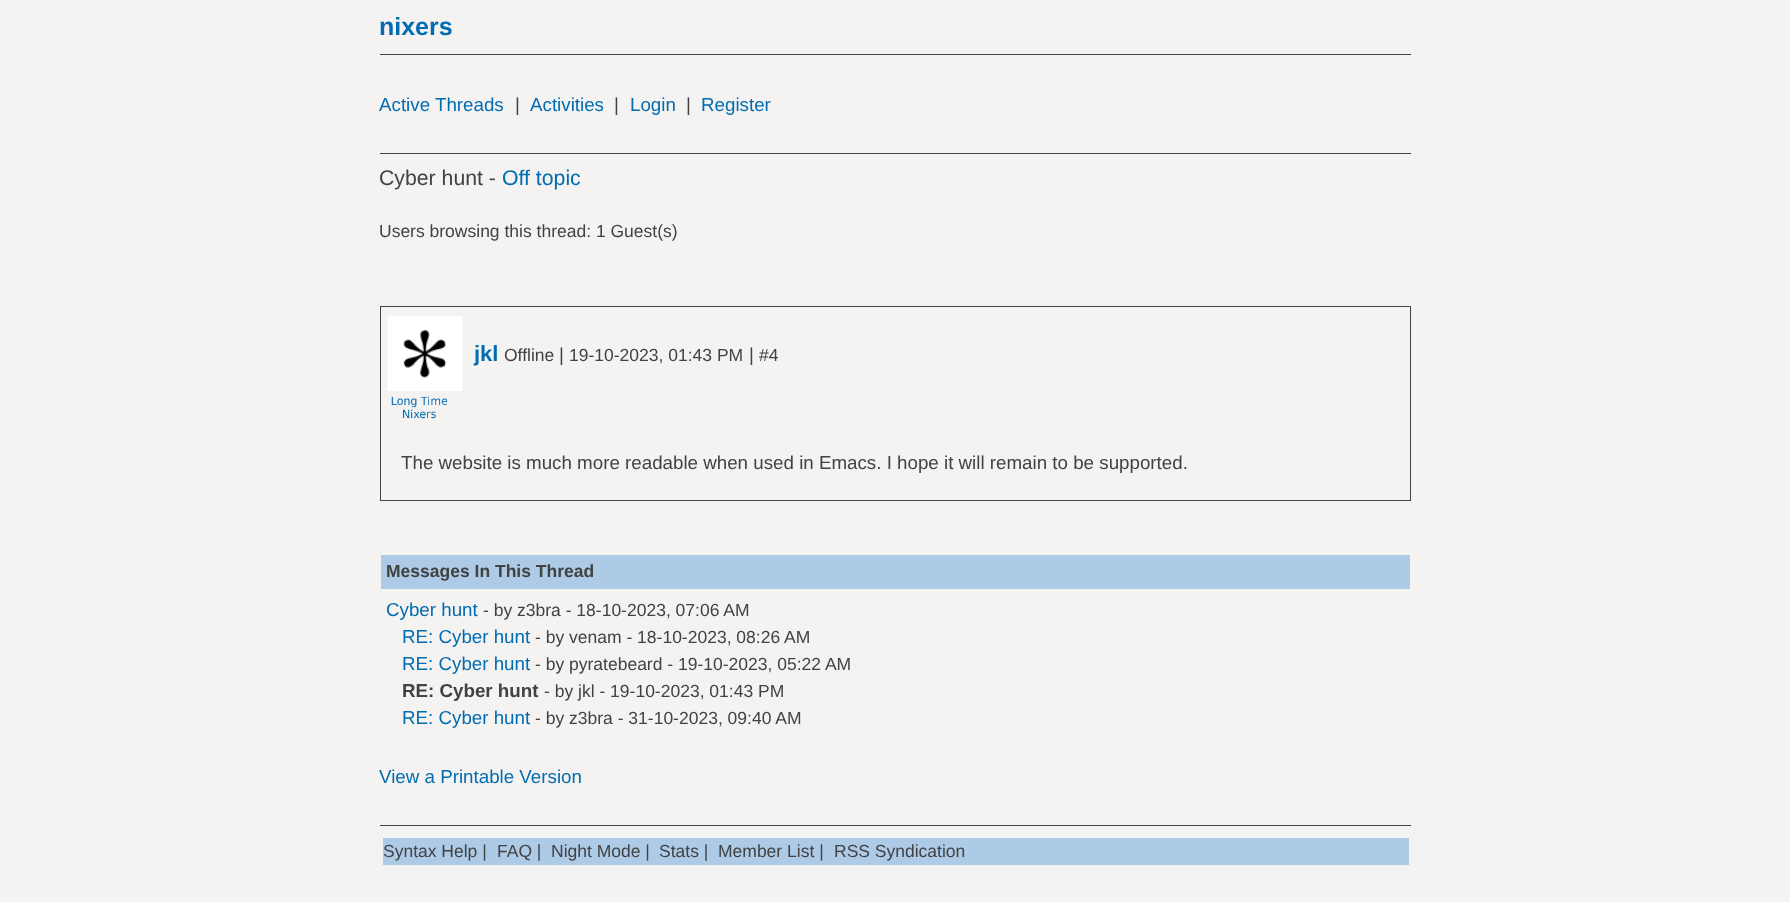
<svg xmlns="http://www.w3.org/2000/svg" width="1790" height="902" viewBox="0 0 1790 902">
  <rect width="100%" height="100%" fill="rgb(244,243,242)"/>
  <text x="379" y="35" font-family="Liberation Sans" font-size="25" font-weight="bold" fill="rgb(2,108,177)">nixers</text>
  <rect x="380" y="54" width="1031" height="1" fill="rgb(66,66,66)"/>
  <text x="379" y="111" font-family="Liberation Sans" font-size="18.75" fill="rgb(2,108,177)">Active Threads</text>
  <text x="515" y="111" font-family="Liberation Sans" font-size="18.75" fill="rgb(66,66,66)">|</text>
  <text x="530" y="111" font-family="Liberation Sans" font-size="18.75" fill="rgb(2,108,177)">Activities</text>
  <text x="614" y="111" font-family="Liberation Sans" font-size="18.75" fill="rgb(66,66,66)">|</text>
  <text x="630" y="111" font-family="Liberation Sans" font-size="18.75" fill="rgb(2,108,177)">Login</text>
  <text x="686" y="111" font-family="Liberation Sans" font-size="18.75" fill="rgb(66,66,66)">|</text>
  <text x="701" y="111" font-family="Liberation Sans" font-size="18.75" fill="rgb(2,108,177)">Register</text>
  <rect x="380" y="153" width="1031" height="1" fill="rgb(66,66,66)"/>
  <text x="379" y="185" font-family="Liberation Sans" font-size="21.25" fill="rgb(66,66,66)">Cyber hunt -</text>
  <text x="502" y="185" font-family="Liberation Sans" font-size="21.25" fill="rgb(2,108,177)">Off topic</text>
  <text x="379" y="237" font-family="Liberation Sans" font-size="17.5" fill="rgb(66,66,66)">Users browsing this thread: 1 Guest(s)</text>
  <rect x="380.5" y="306.5" width="1030" height="194" fill="none" stroke="rgb(66,66,66)"/>
  <image x="387" y="316" width="76" height="75" href="pic1.png"/>
  <text x="474" y="361" font-family="Liberation Sans" font-size="22" font-weight="bold" fill="rgb(2,108,177)">jkl</text>
  <text x="504" y="361" font-family="Liberation Sans" font-size="17.5" fill="rgb(66,66,66)">Offline</text>
  <text x="559" y="361" font-family="Liberation Sans" font-size="18.75" fill="rgb(66,66,66)">|</text>
  <text x="569" y="361" font-family="Liberation Sans" font-size="17.5" fill="rgb(66,66,66)">19-10-2023, 01:43 PM</text>
  <text x="749" y="361" font-family="Liberation Sans" font-size="18.75" fill="rgb(66,66,66)">|</text>
  <text x="759" y="361" font-family="Liberation Sans" font-size="17.5" fill="rgb(66,66,66)">#4</text>
  <image x="391" y="396" width="57" height="23" href="pic2.png"/>
  <text x="401" y="469" font-family="Liberation Sans" font-size="18.75" fill="rgb(66,66,66)">The website is much more readable when used in Emacs. I hope it will remain to be supported.</text>
  <rect x="381" y="555" width="1029" height="34" fill="rgb(173,203,231)"/>
  <text x="386" y="577" font-family="Liberation Sans" font-size="17.5" font-weight="bold" fill="rgb(66,66,66)">Messages In This Thread</text>
  <text x="386" y="616" font-family="Liberation Sans" font-size="18.75" fill="rgb(2,108,177)">Cyber hunt</text>
  <text x="483" y="616" font-family="Liberation Sans" font-size="17.5" fill="rgb(66,66,66)">- by z3bra - 18-10-2023, 07:06 AM</text>
  <text x="402" y="643" font-family="Liberation Sans" font-size="18.75" fill="rgb(2,108,177)">RE: Cyber hunt</text>
  <text x="535" y="643" font-family="Liberation Sans" font-size="17.5" fill="rgb(66,66,66)">- by venam - 18-10-2023, 08:26 AM</text>
  <text x="402" y="670" font-family="Liberation Sans" font-size="18.75" fill="rgb(2,108,177)">RE: Cyber hunt</text>
  <text x="535" y="670" font-family="Liberation Sans" font-size="17.5" fill="rgb(66,66,66)">- by pyratebeard - 19-10-2023, 05:22 AM</text>
  <text x="402" y="697" font-family="Liberation Sans" font-size="18.75" font-weight="bold" fill="rgb(66,66,66)">RE: Cyber hunt</text>
  <text x="544" y="697" font-family="Liberation Sans" font-size="17.5" fill="rgb(66,66,66)">- by jkl - 19-10-2023, 01:43 PM</text>
  <text x="402" y="724" font-family="Liberation Sans" font-size="18.75" fill="rgb(2,108,177)">RE: Cyber hunt</text>
  <text x="535" y="724" font-family="Liberation Sans" font-size="17.5" fill="rgb(66,66,66)">- by z3bra - 31-10-2023, 09:40 AM</text>
  <text x="379" y="783" font-family="Liberation Sans" font-size="18.75" fill="rgb(2,108,177)">View a Printable Version</text>
  <rect x="380" y="825" width="1031" height="1" fill="rgb(66,66,66)"/>
  <rect x="383" y="838" width="1026" height="27" fill="rgb(173,203,231)"/>
  <g font-family="Liberation Sans" font-size="17.5" fill="rgb(66,66,66)">
    <text x="383" y="857">Syntax Help |</text>
    <text x="497" y="857">FAQ |</text>
    <text x="551" y="857">Night Mode |</text>
    <text x="659" y="857">Stats |</text>
    <text x="718" y="857">Member List |</text>
    <text x="834" y="857">RSS Syndication</text>
  </g>
</svg>
